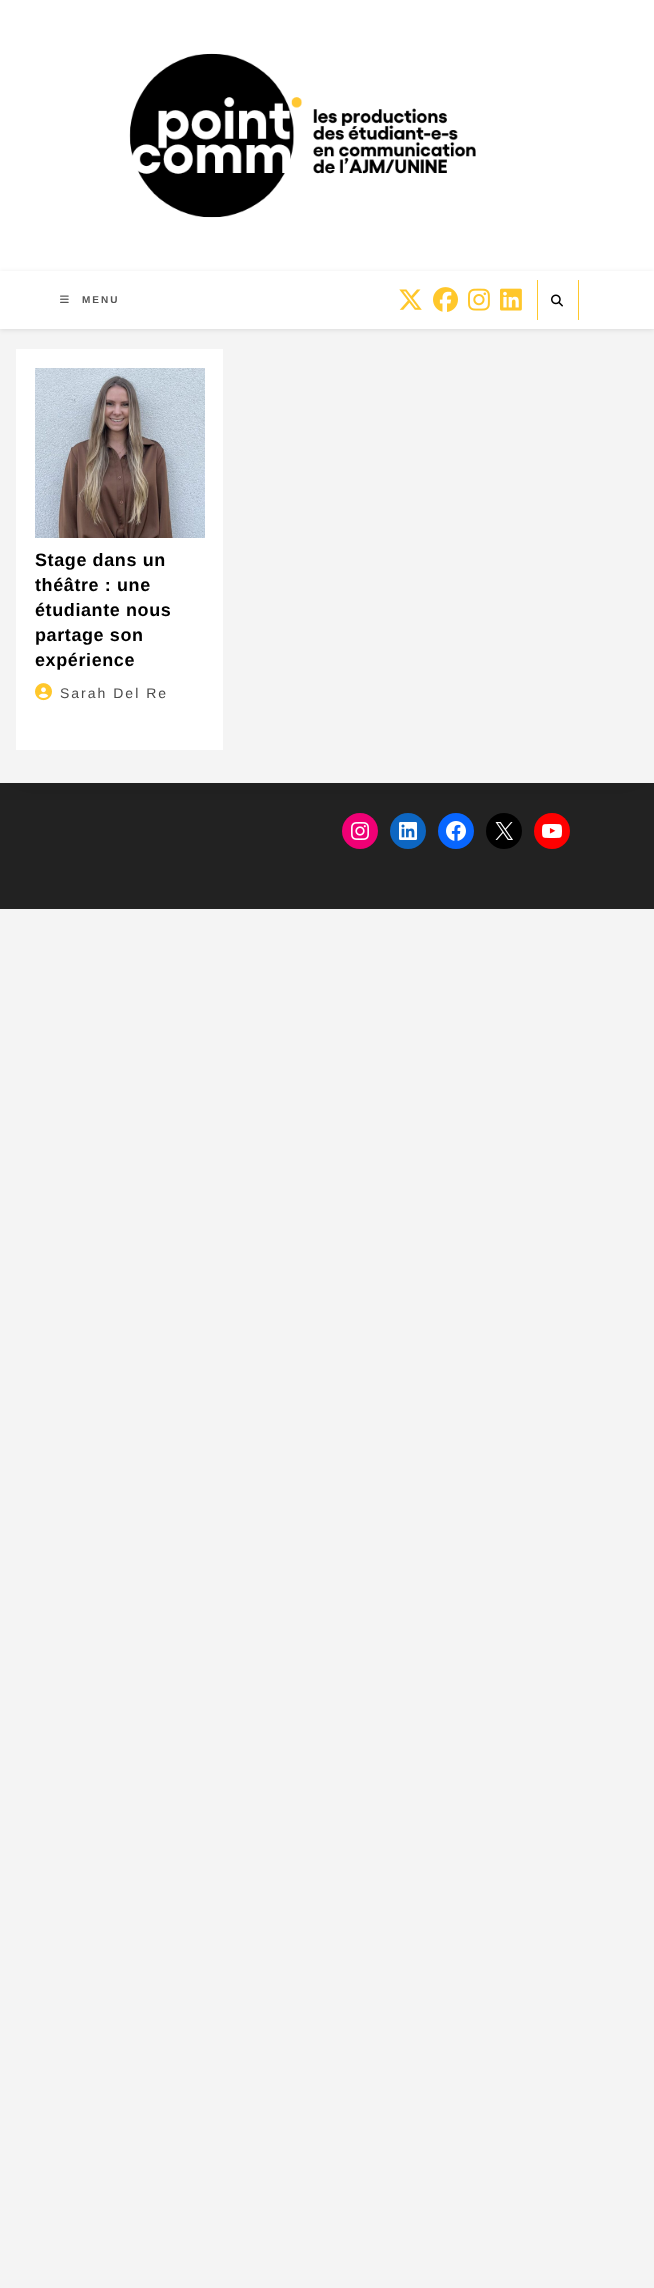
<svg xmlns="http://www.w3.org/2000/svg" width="654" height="2288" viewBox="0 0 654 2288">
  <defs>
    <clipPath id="clip1"><rect x="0" y="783" width="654" height="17"/></clipPath>
    <clipPath id="clip2"><path d="M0 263H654V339H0ZM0 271H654V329H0Z" clip-rule="evenodd"/></clipPath>
  </defs>
  <rect width="100%" height="100%" fill="rgb(244,244,244)"/>
  <rect x="0" y="783" width="654" height="126" fill="rgb(34,34,34)"/>
  <circle cx="360" cy="831" r="18" fill="rgb(240,0,117)"/>
  <image x="351" y="822" width="18" height="18" href="pic10.png"/>
  <circle cx="408" cy="831" r="18" fill="rgb(13,102,194)"/>
  <image x="399" y="822" width="18" height="18" href="pic11.png"/>
  <circle cx="456" cy="831" r="18" fill="rgb(8,102,255)"/>
  <image x="446" y="821" width="20" height="20" href="pic12.png"/>
  <circle cx="504" cy="831" r="18" fill="rgb(0,0,0)"/>
  <image x="495" y="822" width="18" height="18" href="pic13.png"/>
  <circle cx="552" cy="831" r="18" fill="rgb(255,0,0)"/>
  <image x="542" y="824" width="20" height="14" href="pic14.png"/>
  <g clip-path="url(#clip1)">
    <rect x="0" y="329" width="654" height="454" fill="rgba(0,0,0,0.1)" filter="blur(20px)"/>
  </g>
  <rect x="0" y="0" width="654" height="329" fill="rgb(255,255,255)"/>
  <image x="129" y="53" width="347" height="165" href="pic1.png"/>
  <g clip-path="url(#clip2)">
    <rect x="0" y="272" width="654" height="58" fill="rgba(0,0,0,0.1)" filter="blur(2.5px)"/>
  </g>
  <image x="60" y="295" width="9" height="8" href="pic2.png"/>
  <text x="82" y="303" font-family="Liberation Sans" font-size="10" font-weight="bold" letter-spacing="2" fill="rgb(85,85,85)">MENU</text>
  <image x="399" y="289" width="23" height="21" href="pic3.png"/>
  <image x="433" y="287" width="25" height="25" href="pic4.png"/>
  <image x="468" y="288" width="22" height="23" href="pic5.png"/>
  <image x="500" y="288" width="22" height="23" href="pic6.png"/>
  <rect x="578" y="280" width="1" height="40" fill="rgb(255,199,43)"/>
  <rect x="537" y="280" width="1" height="40" fill="rgb(255,199,43)"/>
  <image x="551" y="294" width="12" height="13" href="pic7.png"/>
  <rect x="16" y="349" width="207" height="401" fill="rgb(255,255,255)"/>
  <image x="35" y="368" width="170" height="170" href="pic8.png"/>
  <g font-family="Liberation Sans" font-size="18" font-weight="bold" letter-spacing="0.6" fill="rgb(0,0,0)">
    <text>
      <tspan x="35" y="566">Stage dans un</tspan>
      <tspan x="35" y="591">théâtre : une</tspan>
      <tspan x="35" y="616">étudiante nous</tspan>
      <tspan x="35" y="641">partage son</tspan>
      <tspan x="35" y="666">expérience</tspan>
    </text>
  </g>
  <image x="35" y="683" width="17" height="18" href="pic9.png"/>
  <text x="60" y="698" font-family="Liberation Sans" font-size="14" letter-spacing="2" fill="rgb(74,74,74)">Sarah Del Re</text>
</svg>
